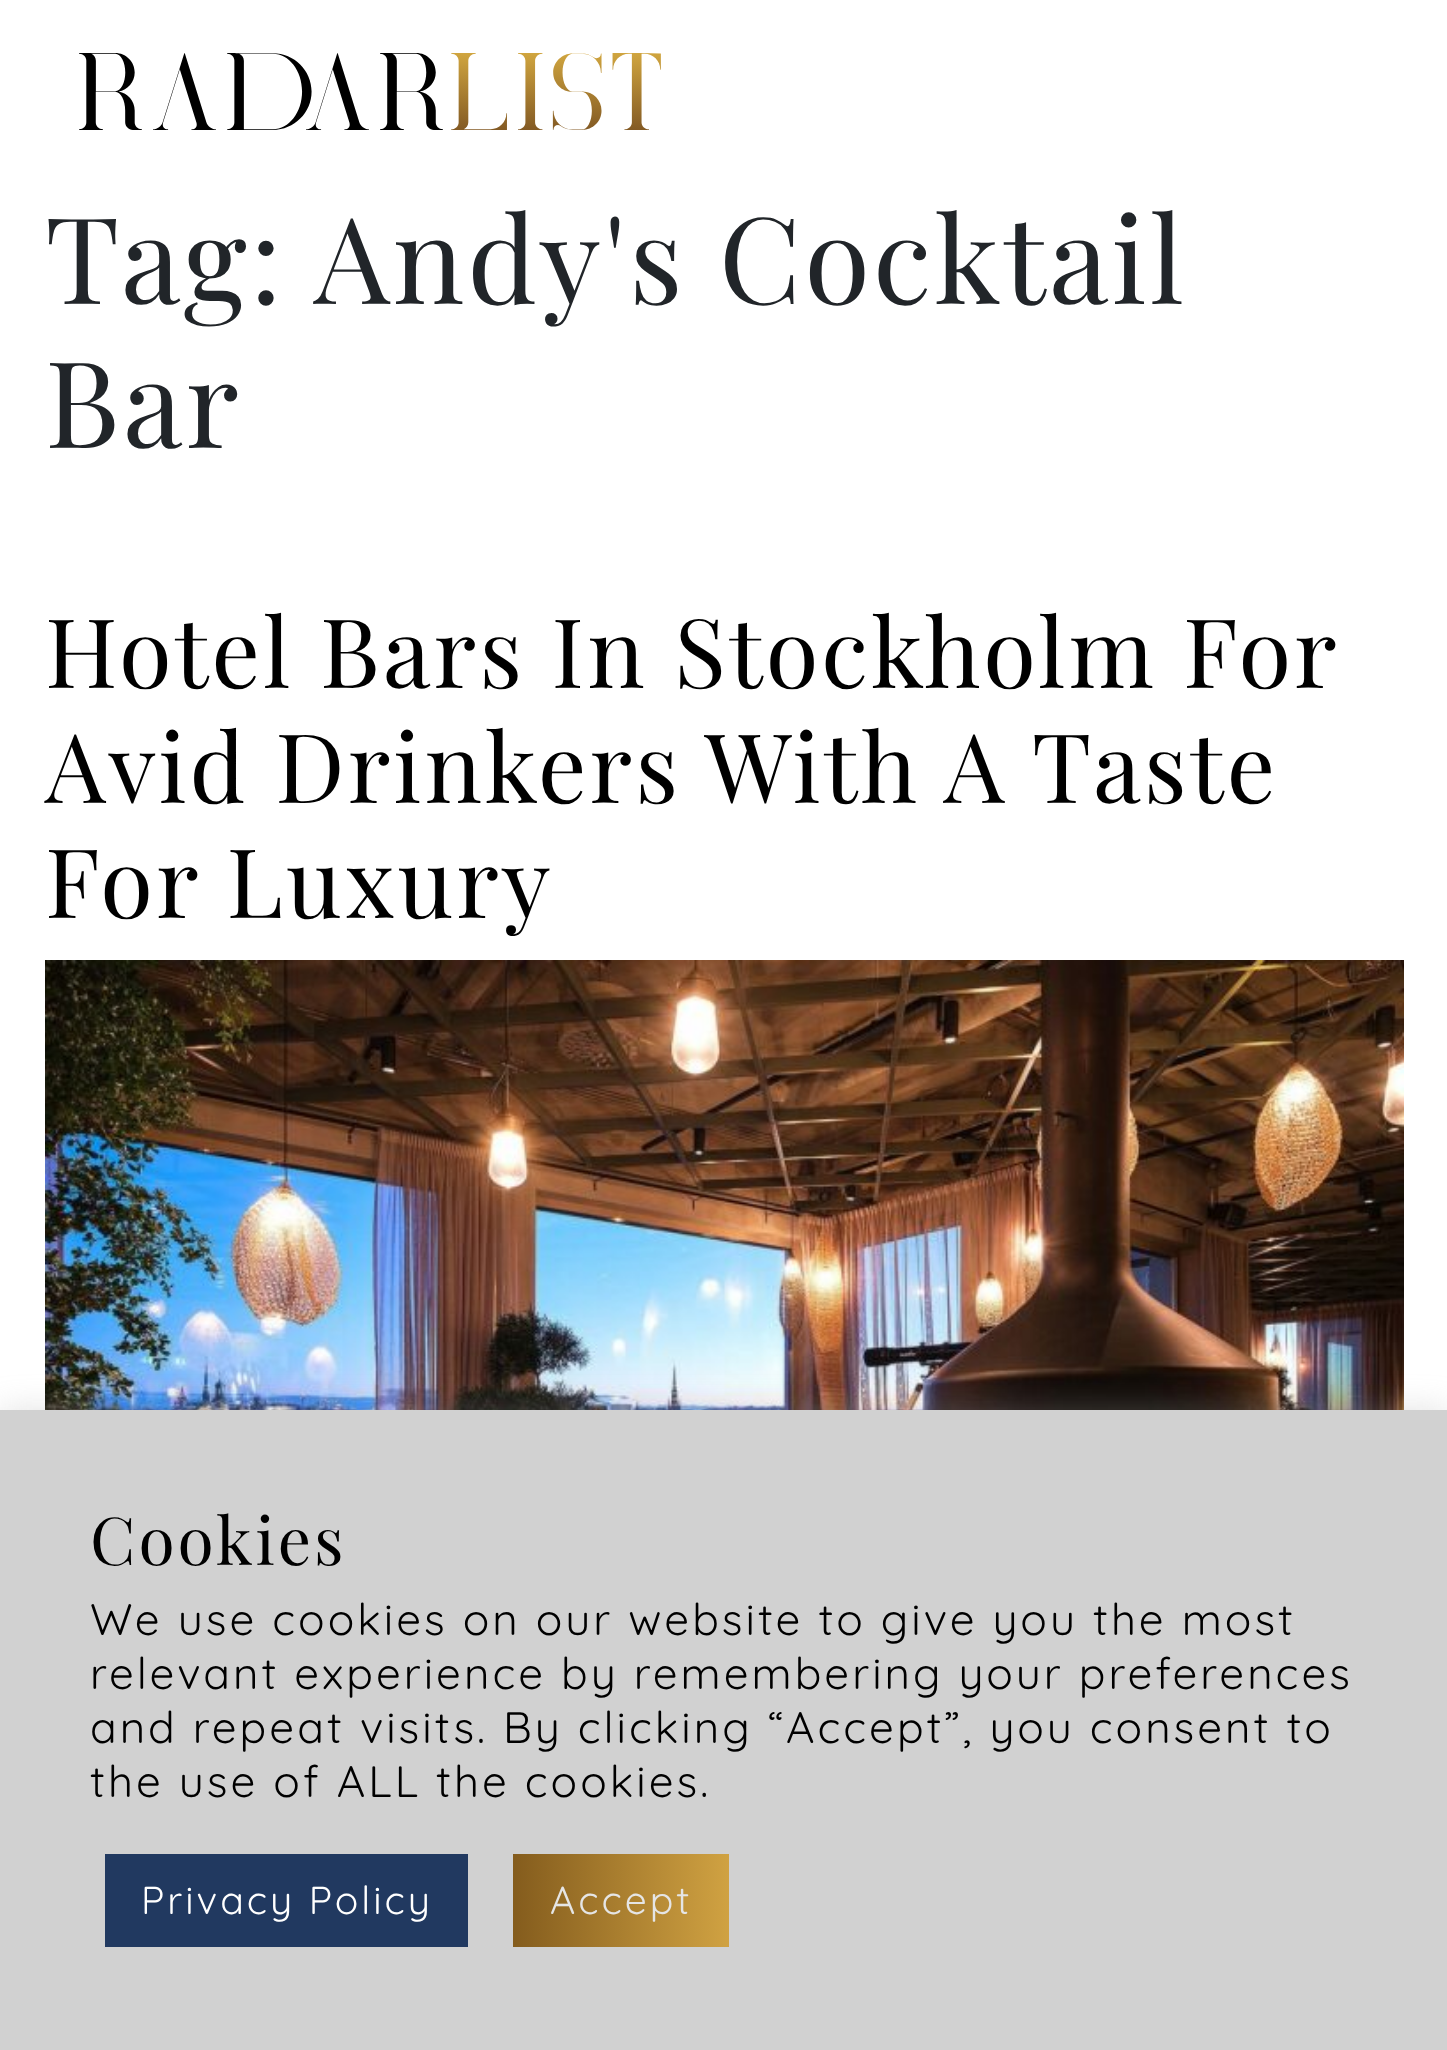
<svg xmlns="http://www.w3.org/2000/svg" width="1447" height="2050" viewBox="0 0 1447 2050">
  <defs>
    <linearGradient id="g1" gradientUnits="userSpaceOnUse" x1="513" y1="1901" x2="729" y2="1901"><stop offset="0" stop-color="rgb(132,92,29)"/><stop offset="1" stop-color="rgb(208,162,66)"/><stop offset="1" stop-color="rgb(132,92,29)"/></linearGradient>
  </defs>
  <rect width="100%" height="100%" fill="rgb(255,255,255)"/>
  <image x="79" y="53" width="582" height="77" href="pic1.png"/>
  <g font-family="Playfair Display" font-size="120" letter-spacing="3" fill="rgb(33,37,41)">
    <text x="45" y="304">Tag:</text>
    <text x="314" y="304">Andy's Cocktail</text>
    <text x="45" y="448">Bar</text>
  </g>
  <g font-family="Playfair Display" font-size="96" letter-spacing="3" fill="rgb(0,0,0)">
    <text>
      <tspan x="45" y="688" word-spacing="-0.5">Hotel Bars In Stockholm For</tspan>
      <tspan x="45" y="803">Avid Drinkers With A Taste</tspan>
      <tspan x="45" y="918">For Luxury</tspan>
    </text>
  </g>
  <image x="45" y="960" width="1359" height="450" href="pic2.png"/>
  <rect x="0" y="1407" width="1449" height="642" fill="rgba(172,171,171,0.3)" filter="blur(15px)"/>
  <rect x="0" y="1410" width="1447" height="640" fill="rgb(209,209,209)"/>
  <text x="90" y="1565" font-family="Playfair Display" font-size="66" letter-spacing="3" fill="rgb(0,0,0)">Cookies</text>
  <g font-family="Quicksand" font-size="44" letter-spacing="3" fill="rgb(0,0,0)">
    <text>
      <tspan x="90" y="1635">We use cookies on our website to give you the most</tspan>
      <tspan x="90" y="1689">relevant experience by remembering your preferences</tspan>
      <tspan x="90" y="1743">and repeat visits. By clicking “Accept”, you consent to</tspan>
      <tspan x="90" y="1797">the use of ALL the cookies.</tspan>
    </text>
  </g>
  <rect x="105" y="1854" width="363" height="93" fill="rgb(33,57,96)"/>
  <text x="141" y="1914" font-family="Quicksand" font-size="39" letter-spacing="3" fill="rgb(255,255,255)">Privacy Policy</text>
  <rect x="513" y="1854" width="216" height="93" fill="url(#g1)"/>
  <text x="550" y="1914" font-family="Quicksand" font-size="39" letter-spacing="3" fill="rgb(229,229,229)">Accept</text>
</svg>
